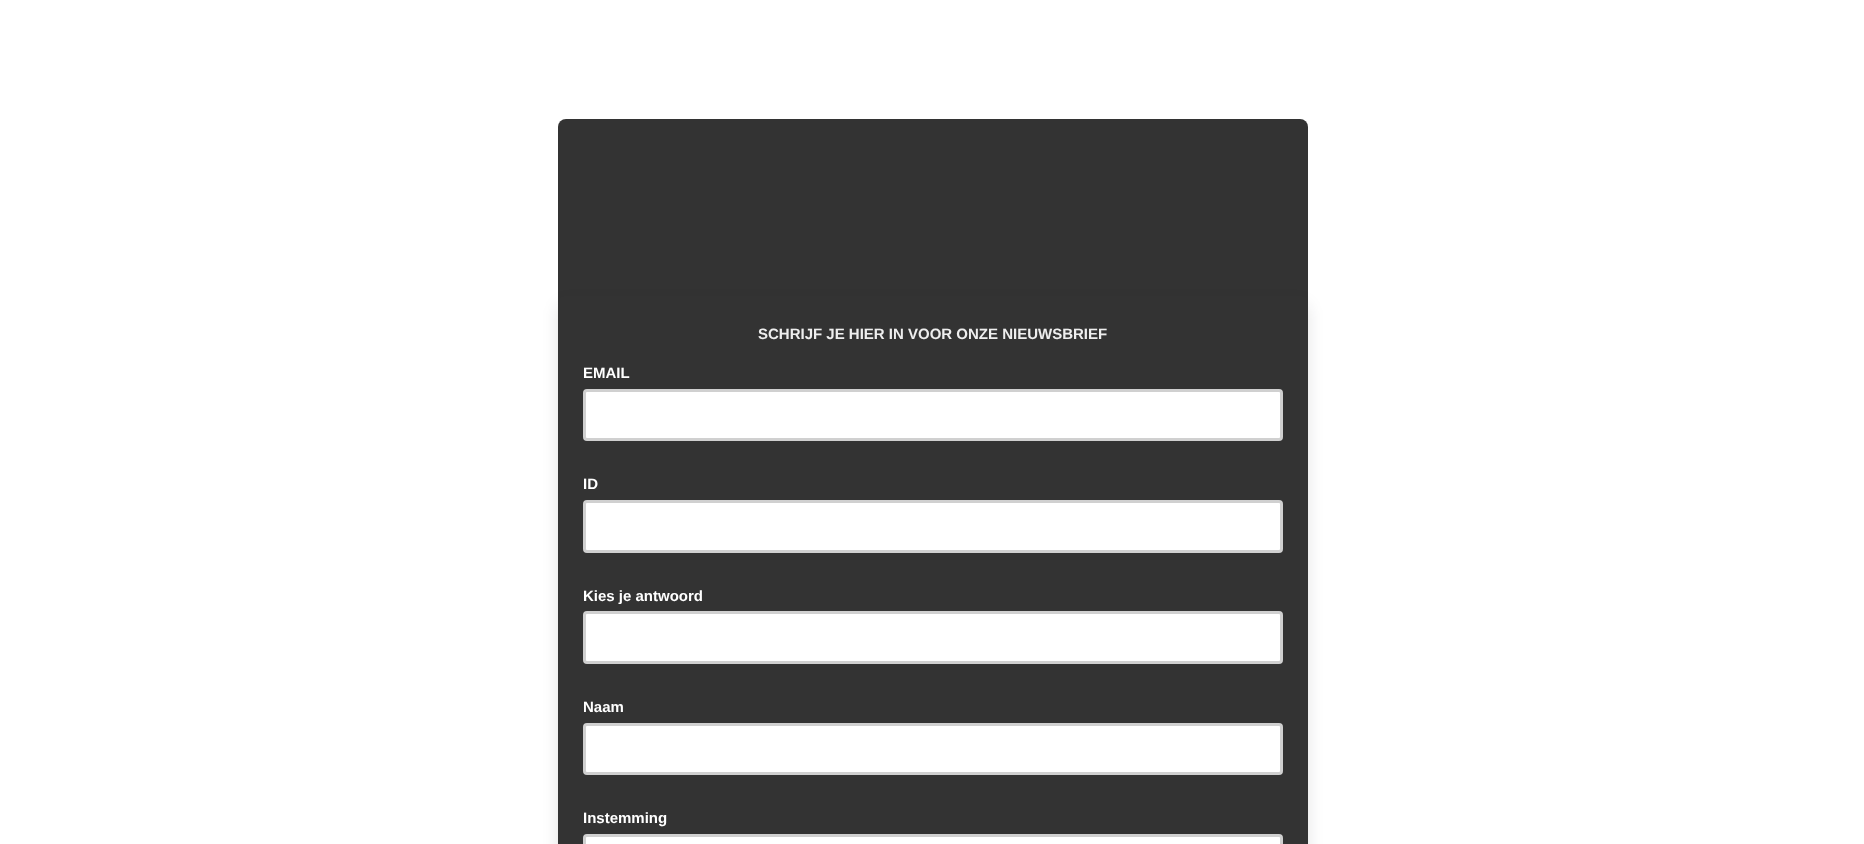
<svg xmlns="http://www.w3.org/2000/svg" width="1864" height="844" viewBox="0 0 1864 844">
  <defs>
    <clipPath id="clip1"><path d="M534 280H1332V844H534ZM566 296H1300C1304.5 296 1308 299.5 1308 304V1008C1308 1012.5 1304.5 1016 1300 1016H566C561.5 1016 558 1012.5 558 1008V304C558 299.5 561.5 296 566 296Z" clip-rule="evenodd"/></clipPath>
  </defs>
  <rect width="100%" height="100%" fill="rgb(255,255,255)"/>
  <rect x="558" y="119" width="750" height="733" rx="8" fill="rgb(51,51,51)"/>
  <g clip-path="url(#clip1)">
    <rect x="558" y="304" width="750" height="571" rx="8" fill="rgba(13,18,22,0.12)" filter="blur(7.5px)"/>
  </g>
  <text x="758" y="339" font-family="Liberation Sans" font-size="15" font-weight="bold" fill="rgb(238,238,238)">SCHRIJF JE HIER IN VOOR ONZE NIEUWSBRIEF</text>
  <text x="583" y="378" font-family="Liberation Sans" font-size="15" font-weight="bold" fill="rgb(255,255,255)">EMAIL</text>
  <rect x="584.5" y="390.5" width="697" height="49" rx="2.5" fill="rgb(255,255,255)" stroke="rgb(208,208,208)" stroke-width="3"/>
  <text x="583" y="489" font-family="Liberation Sans" font-size="15" font-weight="bold" fill="rgb(255,255,255)">ID</text>
  <rect x="584.5" y="501.5" width="697" height="50" rx="2.5" fill="rgb(255,255,255)" stroke="rgb(208,208,208)" stroke-width="3"/>
  <text x="583" y="601" font-family="Liberation Sans" font-size="15" font-weight="bold" fill="rgb(255,255,255)">Kies je antwoord</text>
  <rect x="584.5" y="612.5" width="697" height="50" rx="2.5" fill="rgb(255,255,255)" stroke="rgb(208,208,208)" stroke-width="3"/>
  <text x="583" y="712" font-family="Liberation Sans" font-size="15" font-weight="bold" fill="rgb(255,255,255)">Naam</text>
  <rect x="584.5" y="724.5" width="697" height="49" rx="2.5" fill="rgb(255,255,255)" stroke="rgb(208,208,208)" stroke-width="3"/>
  <text x="583" y="823" font-family="Liberation Sans" font-size="15" font-weight="bold" fill="rgb(255,255,255)">Instemming</text>
  <rect x="584.5" y="835.5" width="697" height="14" rx="2.5" fill="rgb(255,255,255)" stroke="rgb(208,208,208)" stroke-width="3"/>
</svg>
